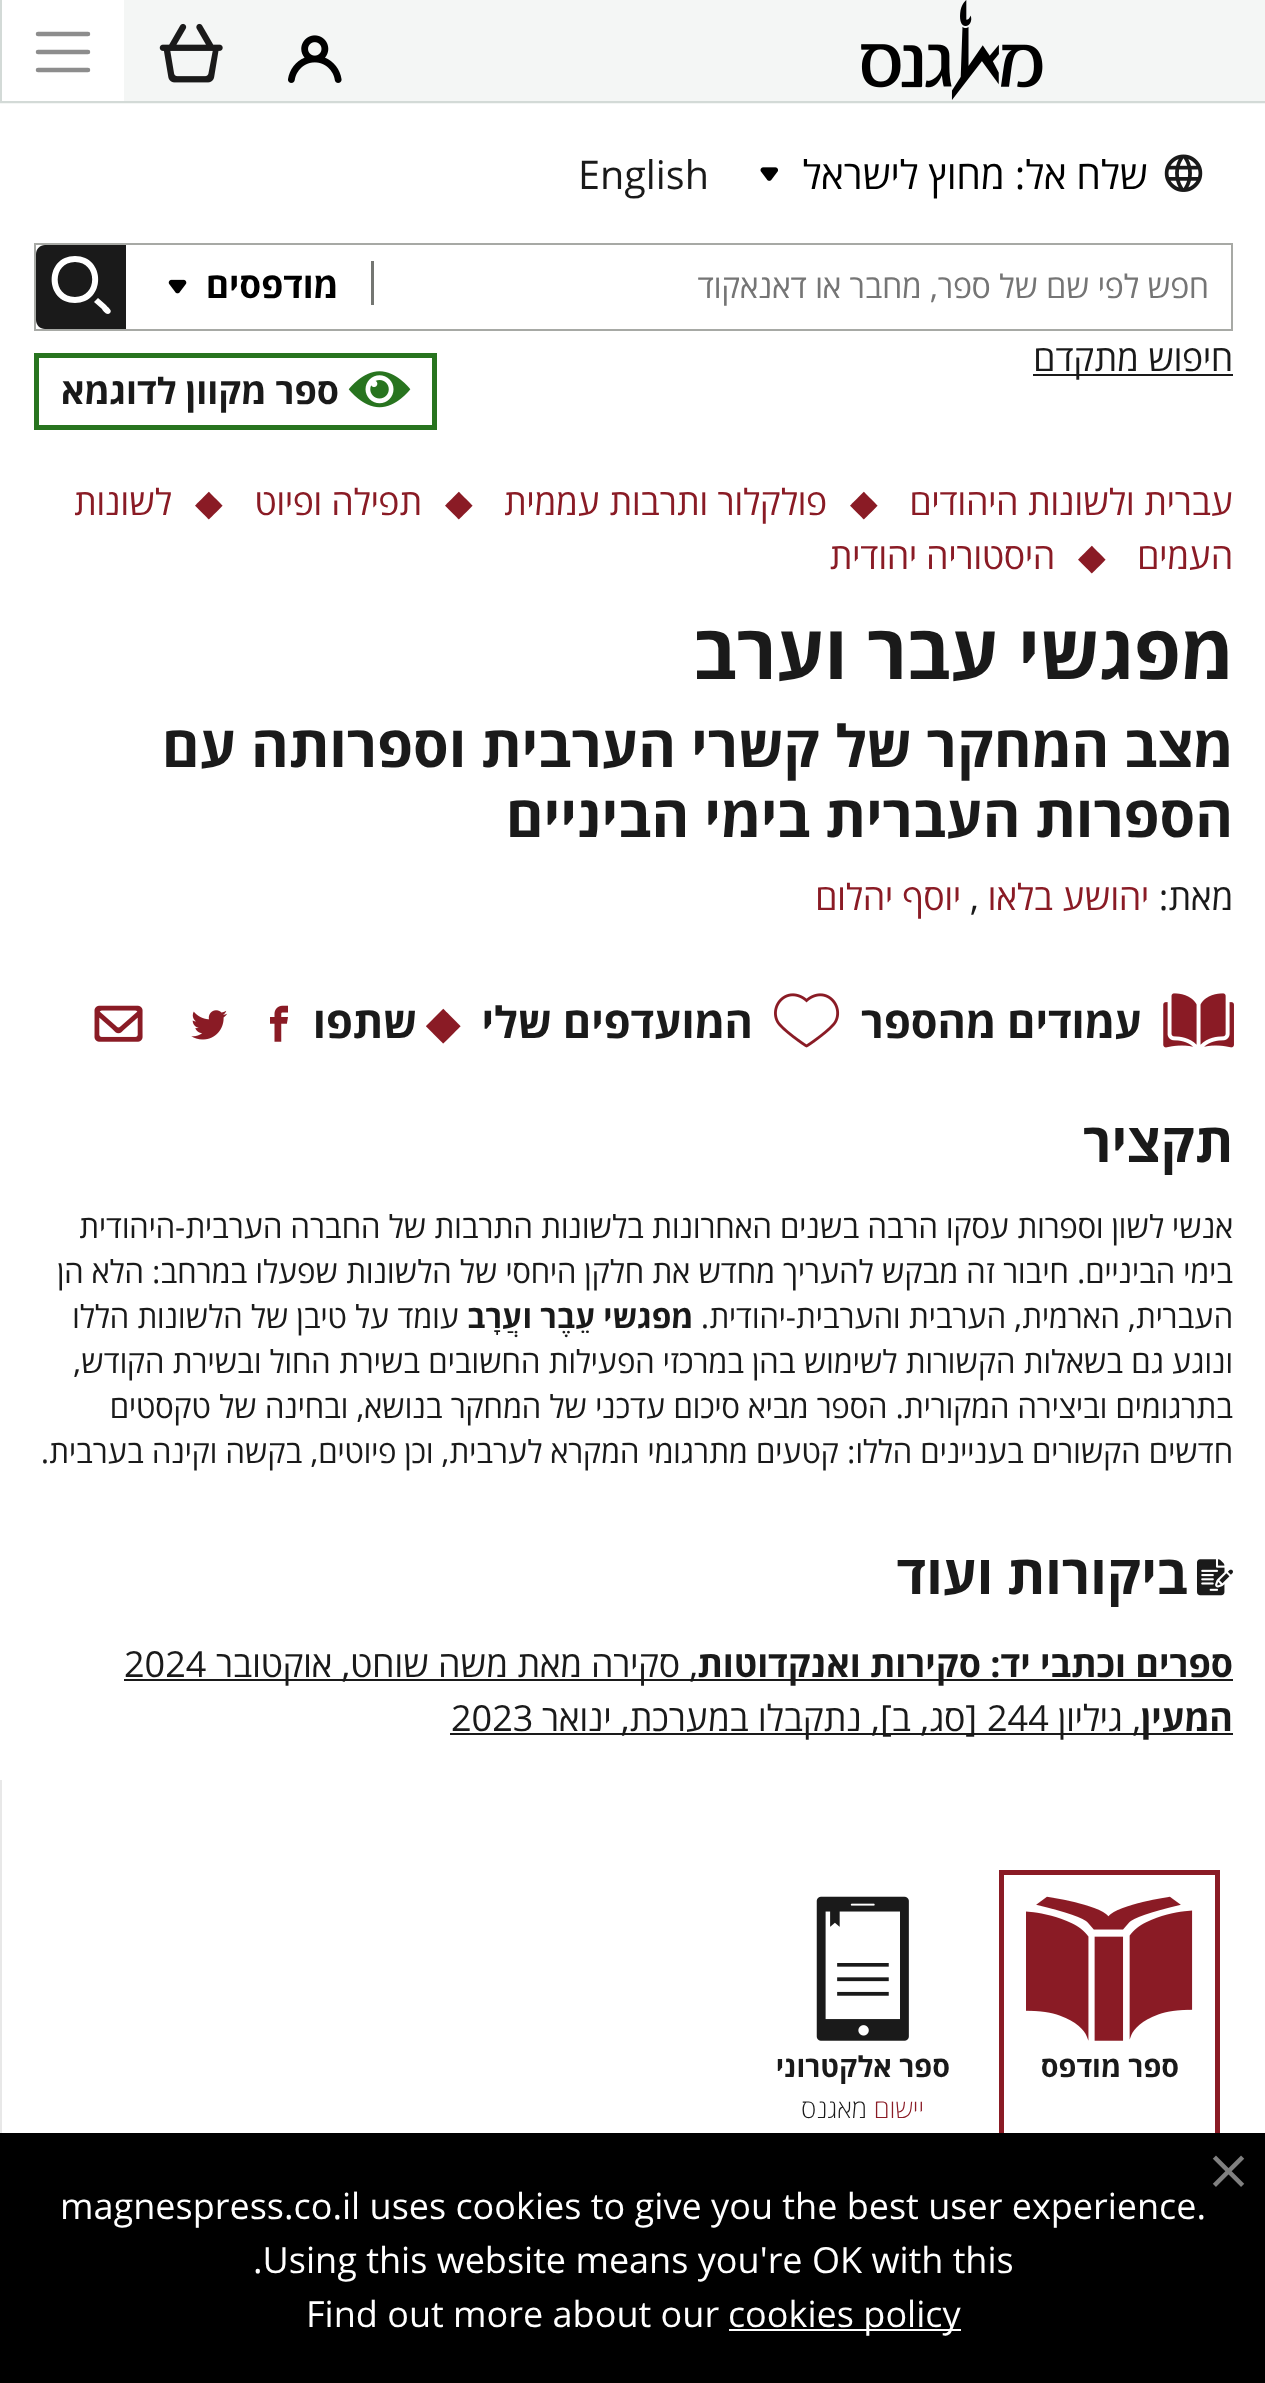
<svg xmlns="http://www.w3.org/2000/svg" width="1265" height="2383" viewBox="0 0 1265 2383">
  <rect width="100%" height="100%" fill="rgb(255,255,255)"/>
  <rect x="0" y="0" width="1265" height="104" fill="rgb(244,246,245)"/>
  <rect x="0" y="101" width="1265" height="2" fill="rgb(211,218,215)"/>
  <image x="861" y="0" width="182" height="100" href="pic1.png"/>
  <image x="288" y="35" width="54" height="48" href="pic2.png"/>
  <image x="159" y="23" width="64" height="60" href="pic3.png"/>
  <rect x="2" y="0" width="122" height="101" fill="rgb(255,255,255)"/>
  <rect x="0" y="0" width="2" height="101" fill="rgb(211,218,215)"/>
  <path d="M38 34H88M38 52H88M38 70H88" fill="none" stroke="rgb(141,141,141)" stroke-width="4.5" stroke-linecap="round"/>
  <image x="1164" y="154" width="39" height="38" href="pic4.png"/>
  <text x="1148" y="189" font-family="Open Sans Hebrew" font-size="39.5" direction="rtl" fill="rgb(0,0,0)">שלח אל: מחוץ לישראל</text>
  <image x="760" y="167" width="18" height="14" href="pic5.png"/>
  <text x="578" y="189" font-family="Open Sans Hebrew" font-size="39.5" fill="rgb(26,26,26)">English</text>
  <rect x="35" y="244" width="1197" height="86" fill="none" stroke="rgb(167,169,165)" stroke-width="2"/>
  <text x="1209" y="298" font-family="Open Sans Hebrew" font-size="32.4" direction="rtl" fill="rgb(117,117,117)">חפש לפי שם של ספר, מחבר או דאנאקוד</text>
  <rect x="371" y="261" width="3" height="44" fill="rgb(116,118,114)"/>
  <text x="338" y="298" font-family="Open Sans Hebrew" font-size="35.5" font-weight="bold" direction="rtl" fill="rgb(0,0,0)">מודפסים</text>
  <image x="168" y="279" width="19" height="15" href="pic6.png"/>
  <path d="M45 245H126V329H45C40 329 36 325 36 320V254C36 249 40 245 45 245Z" fill="rgb(26,26,26)"/>
  <path d="M110 313C107 316 103 311 102 309L94 302L98 298L106 305C107 307 113 310 110 313ZM75 297C52 297 52 262 75 262C98 262 98 297 75 297ZM75 256C44 256 44 303 75 303C106 303 106 256 75 256Z" fill="rgb(255,255,255)"/>
  <rect x="1033" y="374" width="200" height="2" fill="rgb(26,26,26)"/>
  <text x="1233" y="371" font-family="Open Sans Hebrew" font-size="36" direction="rtl" fill="rgb(26,26,26)">חיפוש מתקדם</text>
  <rect x="36.5" y="355.5" width="398" height="72" fill="none" stroke="rgb(40,116,31)" stroke-width="5"/>
  <image x="348" y="371" width="63" height="37" href="pic7.png"/>
  <text x="339" y="404" font-family="Open Sans Hebrew" font-size="36" font-weight="bold" direction="rtl" fill="rgb(26,26,26)">ספר מקוון לדוגמא</text>
  <text x="1233" y="515" font-family="Open Sans Hebrew" font-size="36" direction="rtl" fill="rgb(138,27,37)">עברית ולשונות היהודים</text>
  <text x="850" y="515" font-family="DejaVu Sans" font-size="36" fill="rgb(138,27,37)">◆</text>
  <text x="827" y="515" font-family="Open Sans Hebrew" font-size="36" direction="rtl" fill="rgb(138,27,37)">פולקלור ותרבות עממית</text>
  <text x="445" y="515" font-family="DejaVu Sans" font-size="36" fill="rgb(138,27,37)">◆</text>
  <text x="422" y="515" font-family="Open Sans Hebrew" font-size="36" direction="rtl" fill="rgb(138,27,37)">תפילה ופיוט</text>
  <text x="195" y="515" font-family="DejaVu Sans" font-size="36" fill="rgb(138,27,37)">◆</text>
  <g font-family="Open Sans Hebrew" font-size="36" direction="rtl" fill="rgb(138,27,37)">
    <text x="172" y="515">לשונות</text>
    <text x="1233" y="569">העמים</text>
  </g>
  <text x="1078" y="569" font-family="DejaVu Sans" font-size="36" fill="rgb(138,27,37)">◆</text>
  <text x="1055" y="569" font-family="Open Sans Hebrew" font-size="36" direction="rtl" fill="rgb(138,27,37)">היסטוריה יהודית</text>
  <text x="1233" y="679" font-family="Open Sans Hebrew" font-size="75.5" font-weight="bold" direction="rtl" fill="rgb(26,26,26)">מפגשי עבר וערב</text>
  <g font-family="Open Sans Hebrew" font-size="57.6" font-weight="bold" direction="rtl" fill="rgb(26,26,26)">
    <text>
      <tspan x="1233" y="767">מצב המחקר של קשרי הערבית וספרותה עם</tspan>
      <tspan x="1233" y="837">הספרות העברית בימי הביניים</tspan>
    </text>
  </g>
  <text x="1233" y="910" font-family="Open Sans Hebrew" font-size="36" direction="rtl" fill="rgb(26,26,26)">מאת:</text>
  <text x="1149" y="910" font-family="Open Sans Hebrew" font-size="36" direction="rtl" fill="rgb(138,27,37)">יהושע בלאו</text>
  <text x="970" y="910" font-family="Open Sans Hebrew" font-size="36" fill="rgb(26,26,26)">,</text>
  <text x="961" y="910" font-family="Open Sans Hebrew" font-size="36" direction="rtl" fill="rgb(138,27,37)">יוסף יהלום</text>
  <image x="1163" y="993" width="71" height="55" href="pic8.png"/>
  <text x="1142" y="1038" font-family="Open Sans Hebrew" font-size="43.25" font-weight="bold" direction="rtl" fill="rgb(26,26,26)">עמודים מהספר</text>
  <image x="774" y="993" width="66" height="55" href="pic9.png"/>
  <text x="753" y="1038" font-family="Open Sans Hebrew" font-size="43.25" font-weight="bold" direction="rtl" fill="rgb(26,26,26)">המועדפים שלי</text>
  <text x="426" y="1038" font-family="DejaVu Sans" font-size="43.25" font-weight="bold" fill="rgb(138,27,37)">◆</text>
  <text x="417" y="1038" font-family="Open Sans Hebrew" font-size="43.25" font-weight="bold" direction="rtl" fill="rgb(26,26,26)">שתפו</text>
  <image x="270" y="1005" width="18" height="37" href="pic10.png"/>
  <image x="191" y="1010" width="37" height="30" href="pic11.png"/>
  <image x="94" y="1005" width="49" height="37" href="pic12.png"/>
  <text x="1233" y="1162" font-family="Open Sans Hebrew" font-size="54" font-weight="bold" direction="rtl" fill="rgb(26,26,26)">תקציר</text>
  <g font-family="Open Sans Hebrew" font-size="31.5" direction="rtl" fill="rgb(26,26,26)">
    <text>
      <tspan x="1233" y="1238">אנשי לשון וספרות עסקו הרבה בשנים האחרונות בלשונות התרבות של החברה הערבית-היהודית</tspan>
      <tspan x="1233" y="1283">בימי הביניים. חיבור זה מבקש להעריך מחדש את חלקן היחסי של הלשונות שפעלו במרחב: הלא הן</tspan>
      <tspan x="1233" y="1328">העברית, הארמית, הערבית והערבית-יהודית.</tspan>
    </text>
  </g>
  <g font-family="Open Sans Hebrew" font-size="31.5" font-weight="bold" direction="rtl" fill="rgb(26,26,26)">
    <text x="693" y="1328">מפגשי עֵבֶר ו</text>
    <text x="522" y="1328">עֲרָב</text>
  </g>
  <g font-family="Open Sans Hebrew" font-size="31.5" direction="rtl" fill="rgb(26,26,26)">
    <text x="459" y="1328">עומד על טיבן של הלשונות הללו</text>
    <text>
      <tspan x="1233" y="1373">ונוגע גם בשאלות הקשורות לשימוש בהן במרכזי הפעילות החשובים בשירת החול ובשירת הקודש,</tspan>
      <tspan x="1233" y="1418">בתרגומים וביצירה המקורית. הספר מביא סיכום עדכני של המחקר בנושא, ובחינה של טקסטים</tspan>
      <tspan x="1233" y="1463">חדשים הקשורים בעניינים הללו: קטעים מתרגומי המקרא לערבית, וכן פיוטים, בקשה וקינה בערבית.</tspan>
    </text>
  </g>
  <image x="1197" y="1559" width="36" height="37" href="pic13.png"/>
  <text x="1188" y="1594" font-family="Open Sans Hebrew" font-size="54" font-weight="bold" direction="rtl" fill="rgb(26,26,26)">ביקורות ועוד</text>
  <rect x="698" y="1679" width="535" height="2" fill="rgb(26,26,26)"/>
  <text x="1233" y="1677" font-family="Open Sans Hebrew" font-size="36" font-weight="bold" direction="rtl" fill="rgb(26,26,26)">ספרים וכתבי יד: סקירות ואנקדוטות</text>
  <rect x="124" y="1679" width="574" height="2" fill="rgb(26,26,26)"/>
  <text x="698" y="1677" font-family="Open Sans Hebrew" font-size="36" direction="rtl" fill="rgb(26,26,26)">, סקירה מאת משה שוחט, אוקטובר</text>
  <text x="124" y="1677" font-family="Open Sans Hebrew" font-size="36" fill="rgb(26,26,26)">2024</text>
  <rect x="1141" y="1733" width="92" height="2" fill="rgb(26,26,26)"/>
  <text x="1233" y="1731" font-family="Open Sans Hebrew" font-size="36" font-weight="bold" direction="rtl" fill="rgb(26,26,26)">המעין</text>
  <rect x="450" y="1733" width="691" height="2" fill="rgb(26,26,26)"/>
  <text x="1141" y="1731" font-family="Open Sans Hebrew" font-size="36" direction="rtl" fill="rgb(26,26,26)">, גיליון</text>
  <text x="987" y="1731" font-family="Open Sans Hebrew" font-size="36" fill="rgb(26,26,26)">244</text>
  <text x="977" y="1731" font-family="Open Sans Hebrew" font-size="36" direction="rtl" fill="rgb(26,26,26)">[סג, ב], נתקבלו במערכת, ינואר</text>
  <text x="451" y="1731" font-family="Open Sans Hebrew" font-size="36" fill="rgb(26,26,26)">2023</text>
  <rect x="0" y="1780" width="2" height="353" fill="rgb(232,232,232)"/>
  <rect x="1001.5" y="1872.5" width="216" height="389" fill="none" stroke="rgb(138,27,37)" stroke-width="5"/>
  <image x="1026" y="1896" width="167" height="145" href="pic14.png"/>
  <text x="1179" y="2077" font-family="Open Sans Hebrew" font-size="28.75" font-weight="bold" direction="rtl" fill="rgb(26,26,26)">ספר מודפס</text>
  <image x="816" y="1896" width="93" height="145" href="pic15.png"/>
  <text x="950" y="2077" font-family="Open Sans Hebrew" font-size="28.75" font-weight="bold" direction="rtl" fill="rgb(26,26,26)">ספר אלקטרוני</text>
  <text x="924" y="2118" font-family="Open Sans Hebrew" font-size="26" font-weight="300" direction="rtl" fill="rgb(138,27,37)">יישום</text>
  <text x="867" y="2118" font-family="Open Sans Hebrew" font-size="26" font-weight="300" direction="rtl" fill="rgb(26,26,26)">מאגנס</text>
  <rect x="0" y="2133" width="1265" height="250" fill="rgb(0,0,0)"/>
  <image x="1212" y="2155" width="33" height="32" href="pic16.png"/>
  <g font-family="Open Sans Hebrew" font-size="36" fill="rgb(255,255,255)">
    <text x="60" y="2219">magnespress.co.il uses cookies to give you the best user experience.</text>
    <text x="253" y="2273">.Using this website means you're OK with this</text>
  </g>
  <rect x="729" y="2329" width="232" height="2" fill="rgb(255,255,255)"/>
  <g font-family="Open Sans Hebrew" font-size="36" fill="rgb(255,255,255)">
    <text x="728" y="2327">cookies policy</text>
    <text x="306" y="2327">Find out more about our</text>
  </g>
</svg>
